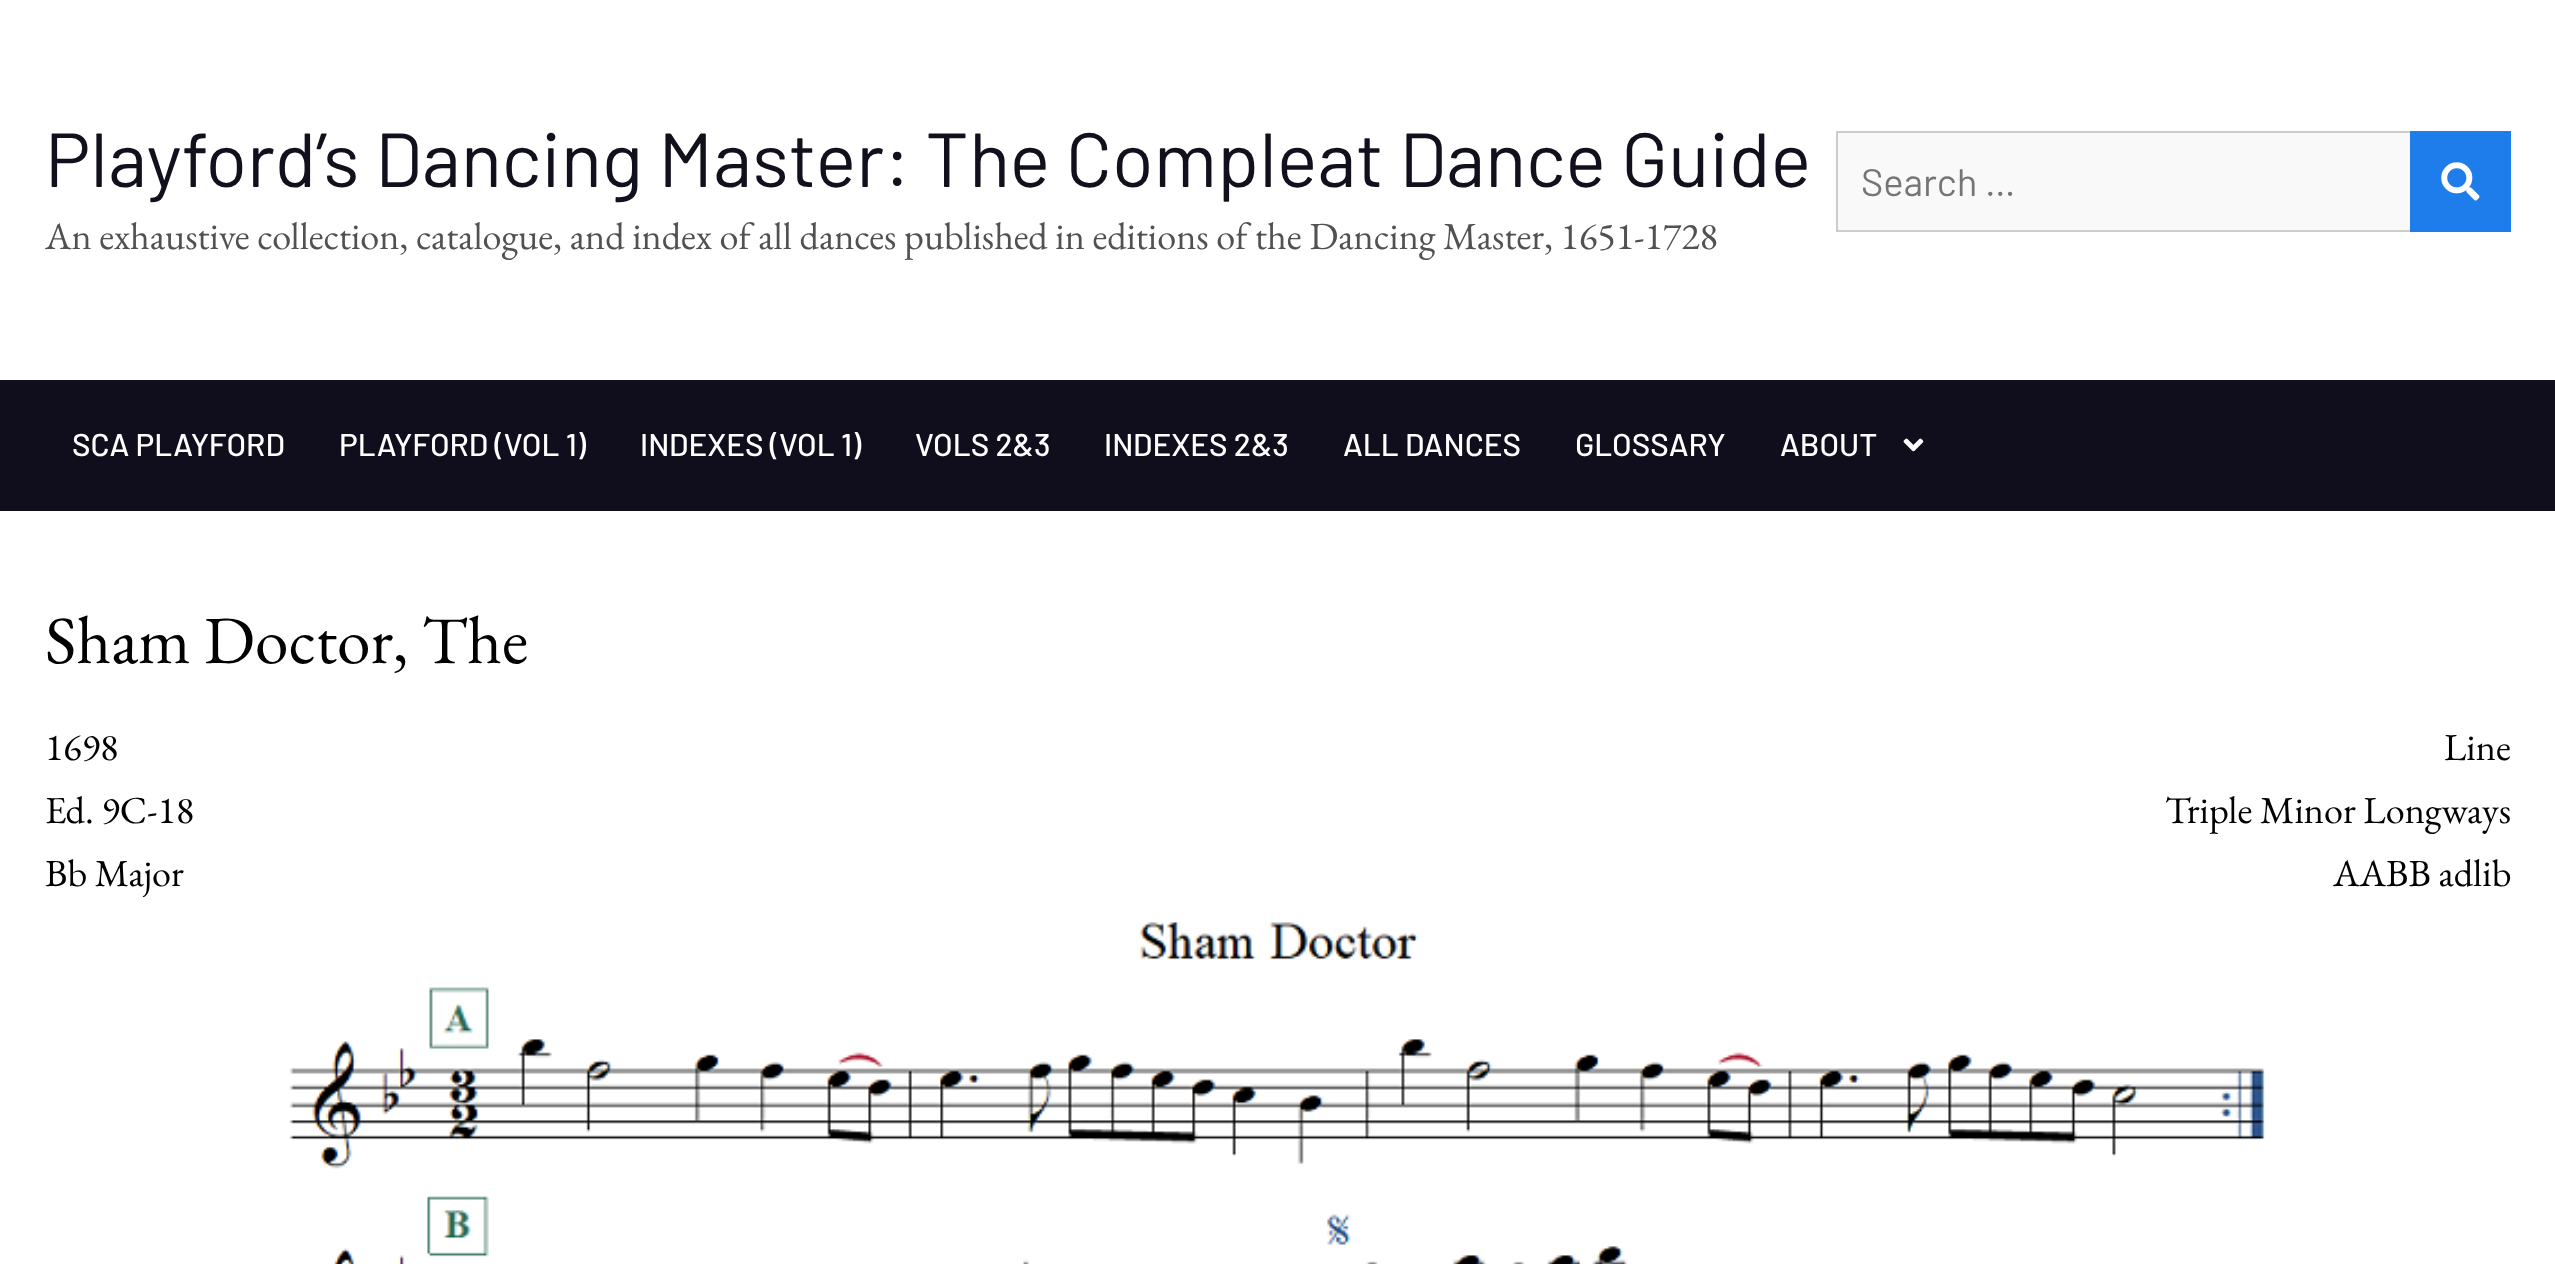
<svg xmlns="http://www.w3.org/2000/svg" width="2555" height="1264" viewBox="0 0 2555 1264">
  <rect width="100%" height="100%" fill="rgb(255,255,255)"/>
  <text x="45" y="187" font-family="Barlow" font-size="76.5" fill="rgb(17,16,29)">Playford’s Dancing Master: The Compleat Dance Guide</text>
  <text x="45" y="249" font-family="EB Garamond" font-size="38.25" fill="rgb(81,81,81)">An exhaustive collection, catalogue, and index of all dances published in editions of the Dancing Master, 1651-1728</text>
  <rect x="1838" y="133" width="572" height="97" fill="rgb(249,249,249)"/>
  <rect x="1837" y="132" width="673" height="99" fill="none" stroke="rgb(204,204,204)" stroke-width="2"/>
  <text x="1861" y="196" font-family="Barlow" font-size="38.25" fill="rgb(117,117,117)">Search …</text>
  <rect x="2410" y="131" width="101" height="101" fill="rgb(30,125,234)"/>
  <image x="2441" y="162" width="39" height="39" href="pic1.png"/>
  <rect x="0" y="380" width="2555" height="131" fill="rgb(16,14,28)"/>
  <g font-family="Barlow" font-size="31.5" font-weight="500" fill="rgb(255,255,255)">
    <text x="72" y="456">SCA PLAYFORD</text>
    <text x="339" y="456">PLAYFORD (VOL 1)</text>
    <text x="640" y="456">INDEXES (VOL 1)</text>
    <text x="915" y="456">VOLS 2&amp;3</text>
    <text x="1104" y="456">INDEXES 2&amp;3</text>
    <text x="1343" y="456">ALL DANCES</text>
    <text x="1575" y="456">GLOSSARY</text>
    <text x="1780" y="456">ABOUT</text>
  </g>
  <image x="1903" y="438" width="21" height="14" href="pic2.png"/>
  <text x="45" y="663" font-family="EB Garamond" font-size="67.5" fill="rgb(0,0,0)">Sham Doctor, The</text>
  <g font-family="EB Garamond" font-size="38.25" fill="rgb(0,0,0)">
    <text x="45" y="760">1698</text>
    <text x="2444" y="760">Line</text>
    <text x="45" y="823">Ed. 9C-18</text>
    <text x="2165" y="823">Triple Minor Longways</text>
    <text x="45" y="886">Bb Major</text>
    <text x="2333" y="886">AABB adlib</text>
  </g>
  <image x="289" y="922" width="1976" height="342" href="pic3.png"/>
</svg>
